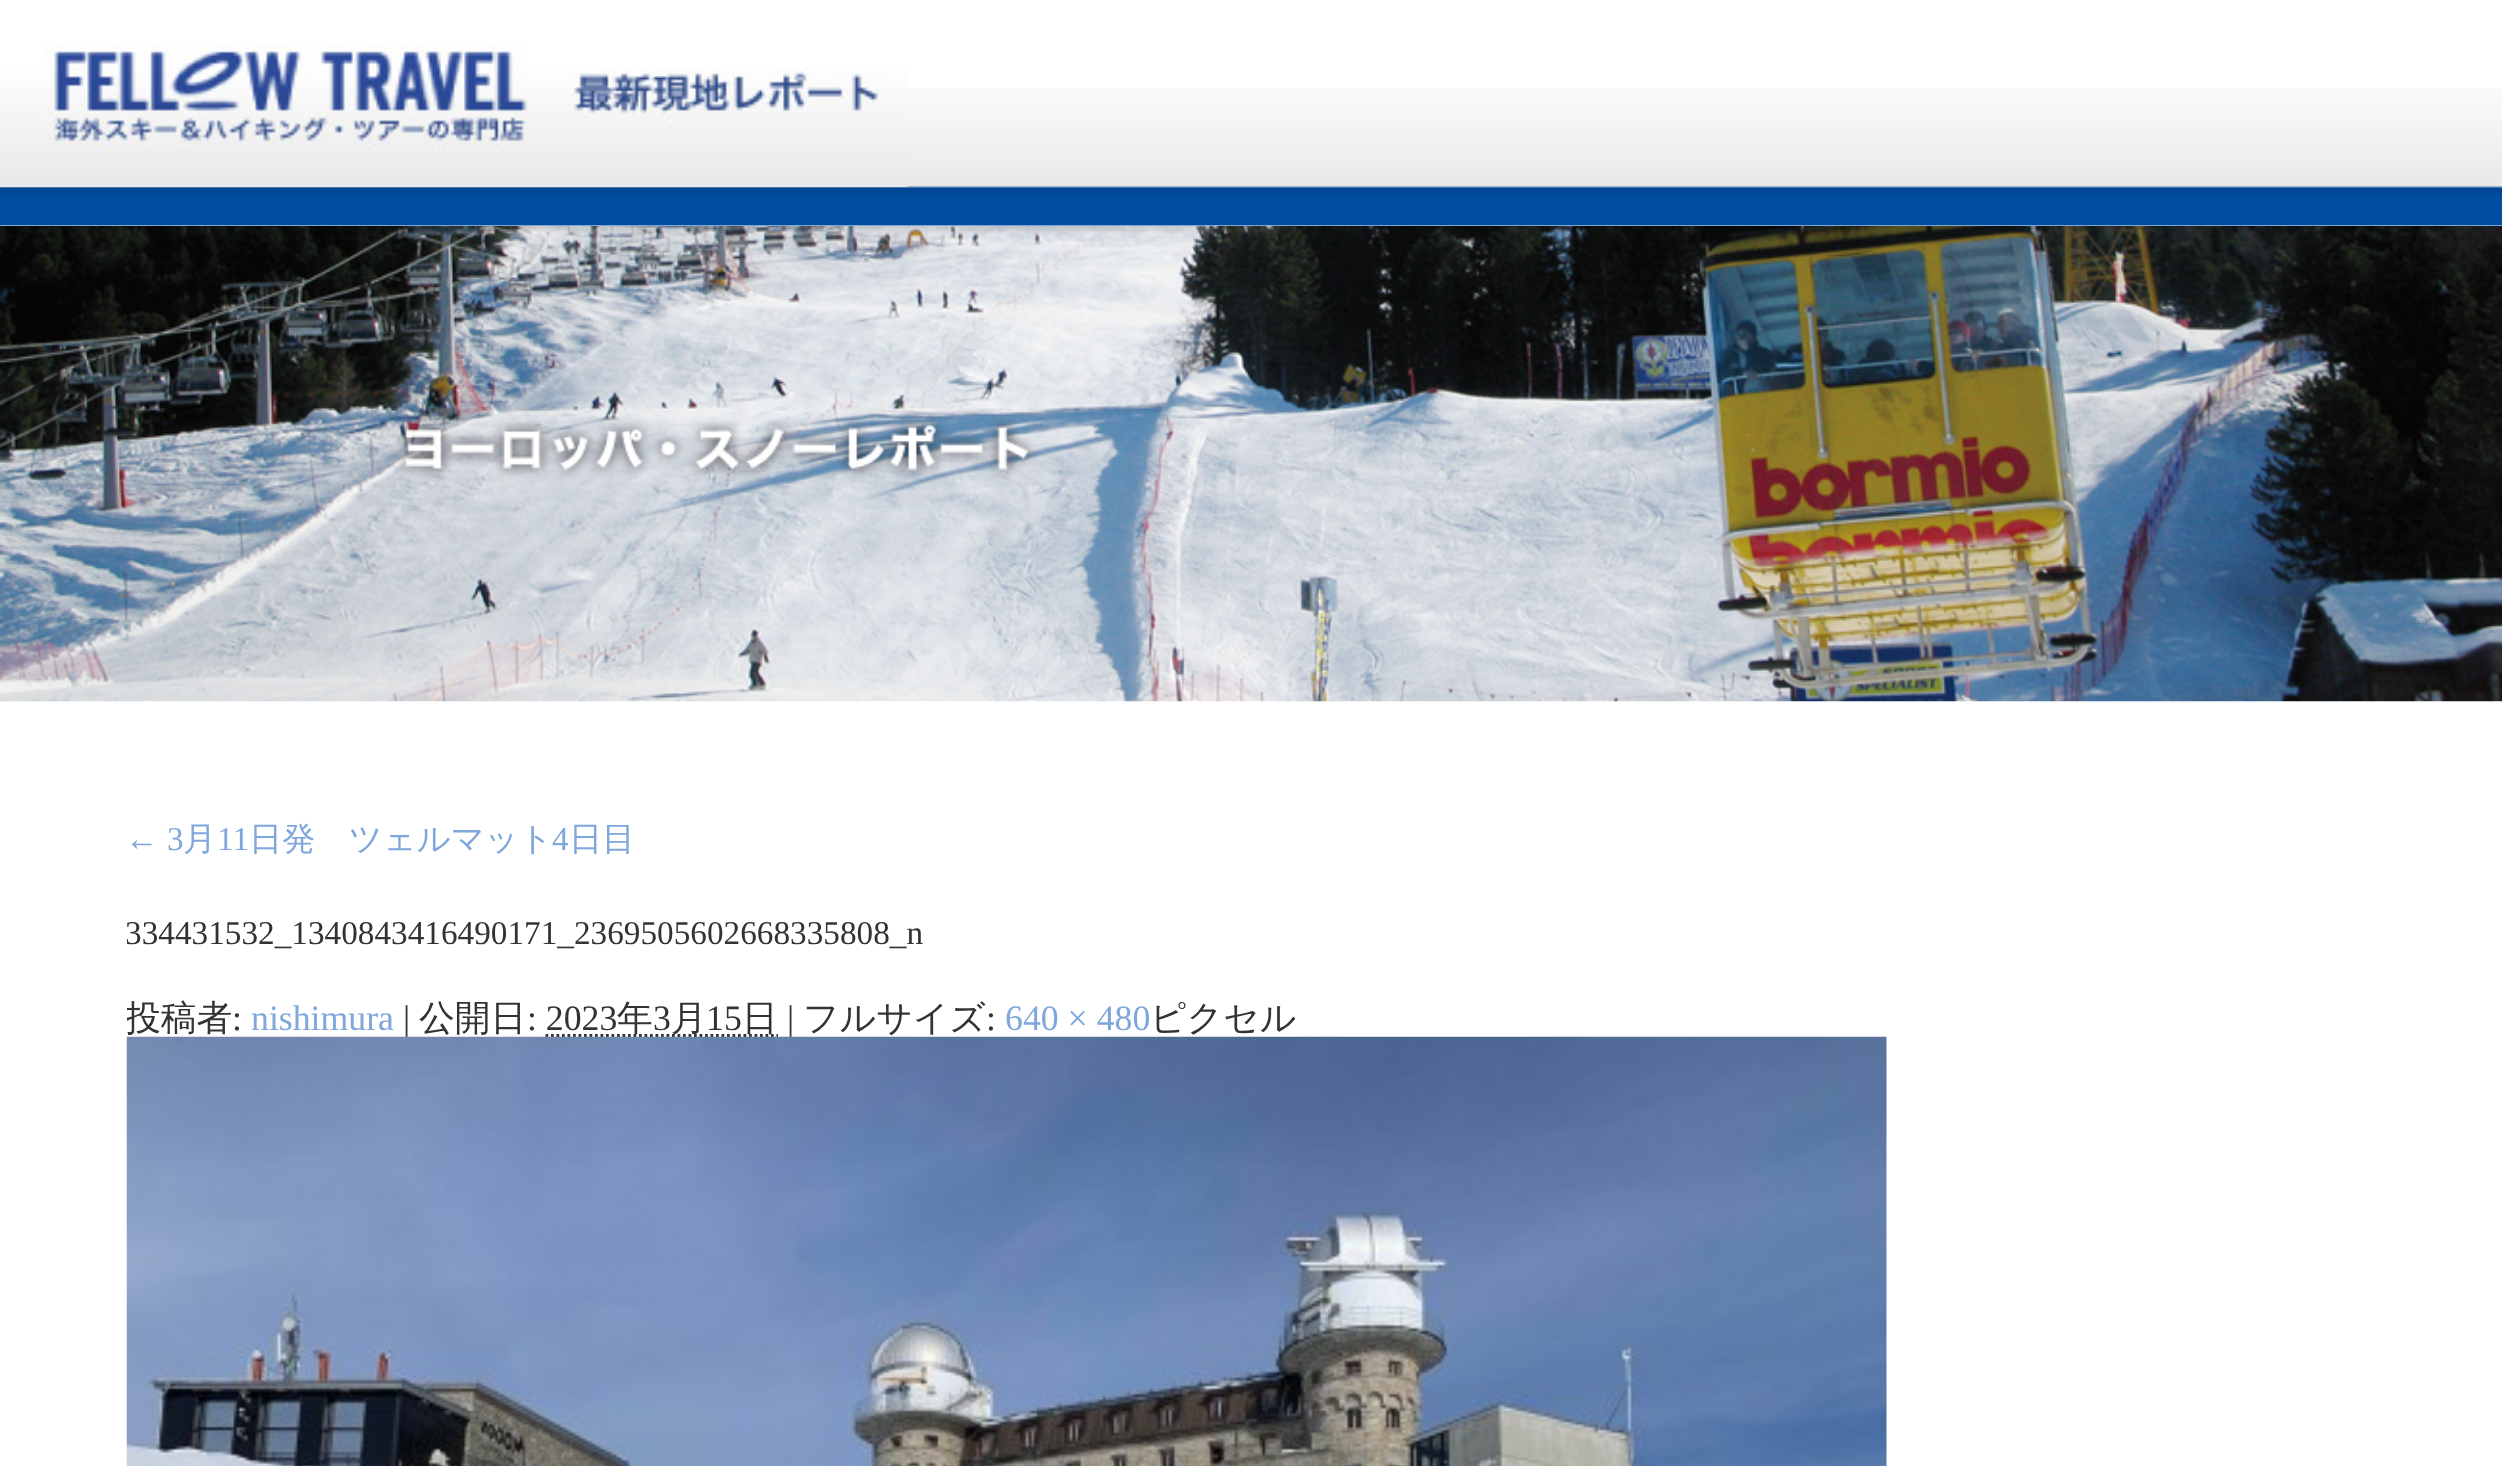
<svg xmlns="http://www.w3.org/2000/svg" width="2502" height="1466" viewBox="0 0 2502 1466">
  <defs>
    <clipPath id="clip1"><rect x="127" y="759" width="2252" height="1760"/></clipPath>
  </defs>
  <rect width="100%" height="100%" fill="rgb(255,255,255)"/>
  <image x="0" y="88" width="2502" height="138" href="pic1.png"/>
  <image x="0" y="43" width="908" height="144" href="pic2.png"/>
  <image x="0" y="226" width="2502" height="476" href="pic3.png"/>
  <g font-family="Liberation Serif" font-size="33.25" fill="rgb(128,167,220)">
    <text x="125" y="850">←</text>
    <text x="167" y="850">3</text>
  </g>
  <text x="183" y="850" font-family="WenQuanYi Zen Hei" font-size="33.25" font-weight="500" fill="rgb(128,167,220)">月</text>
  <text x="217" y="850" font-family="Liberation Serif" font-size="33.25" fill="rgb(128,167,220)">11</text>
  <text x="249" y="850" font-family="WenQuanYi Zen Hei" font-size="33.25" font-weight="500" fill="rgb(128,167,220)">日発　ツェルマット</text>
  <text x="552" y="850" font-family="Liberation Serif" font-size="33.25" fill="rgb(128,167,220)">4</text>
  <text x="569" y="850" font-family="WenQuanYi Zen Hei" font-size="33.25" font-weight="500" fill="rgb(128,167,220)">日目</text>
  <g clip-path="url(#clip1)">
    <text x="125" y="944" font-family="Liberation Serif" font-size="33.25" fill="rgb(51,51,51)">334431532_1340843416490171_2369505602668335808_n</text>
    <text x="125" y="1030" font-family="WenQuanYi Zen Hei" font-size="35.75" font-weight="500" fill="rgb(51,51,51)">投稿者</text>
  </g>
  <text x="232" y="1030" font-family="Liberation Serif" font-size="35.75" fill="rgb(51,51,51)">:</text>
  <text x="251" y="1030" font-family="Liberation Serif" font-size="35.75" fill="rgb(128,167,220)">nishimura</text>
  <text x="403" y="1030" font-family="Liberation Serif" font-size="35.75" fill="rgb(51,51,51)">|</text>
  <text x="419" y="1030" font-family="WenQuanYi Zen Hei" font-size="35.75" font-weight="500" fill="rgb(51,51,51)">公開日</text>
  <text x="527" y="1030" font-family="Liberation Serif" font-size="35.75" fill="rgb(51,51,51)">: 2023</text>
  <path d="M545.5 1035.5H778" fill="none" stroke="rgb(51,51,51)" stroke-width="2.8" stroke-dasharray="2.75 2.75"/>
  <text x="617" y="1030" font-family="WenQuanYi Zen Hei" font-size="35.75" font-weight="500" fill="rgb(51,51,51)">年</text>
  <text x="653" y="1030" font-family="Liberation Serif" font-size="35.75" fill="rgb(51,51,51)">3</text>
  <text x="671" y="1030" font-family="WenQuanYi Zen Hei" font-size="35.75" font-weight="500" fill="rgb(51,51,51)">月</text>
  <text x="706" y="1030" font-family="Liberation Serif" font-size="35.75" fill="rgb(51,51,51)">15</text>
  <text x="742" y="1030" font-family="WenQuanYi Zen Hei" font-size="35.75" font-weight="500" fill="rgb(51,51,51)">日</text>
  <text x="787" y="1030" font-family="Liberation Serif" font-size="35.75" fill="rgb(51,51,51)">|</text>
  <text x="803" y="1030" font-family="WenQuanYi Zen Hei" font-size="35.75" font-weight="500" fill="rgb(51,51,51)">フルサイズ</text>
  <text x="986" y="1030" font-family="Liberation Serif" font-size="35.75" fill="rgb(51,51,51)">:</text>
  <text x="1005" y="1030" font-family="Liberation Serif" font-size="35.75" fill="rgb(128,167,220)">640 × 480</text>
  <text x="1150" y="1030" font-family="WenQuanYi Zen Hei" font-size="35.75" font-weight="500" fill="rgb(51,51,51)">ピクセル</text>
  <image x="126" y="1036" width="1761" height="430" href="pic4.png"/>
</svg>
